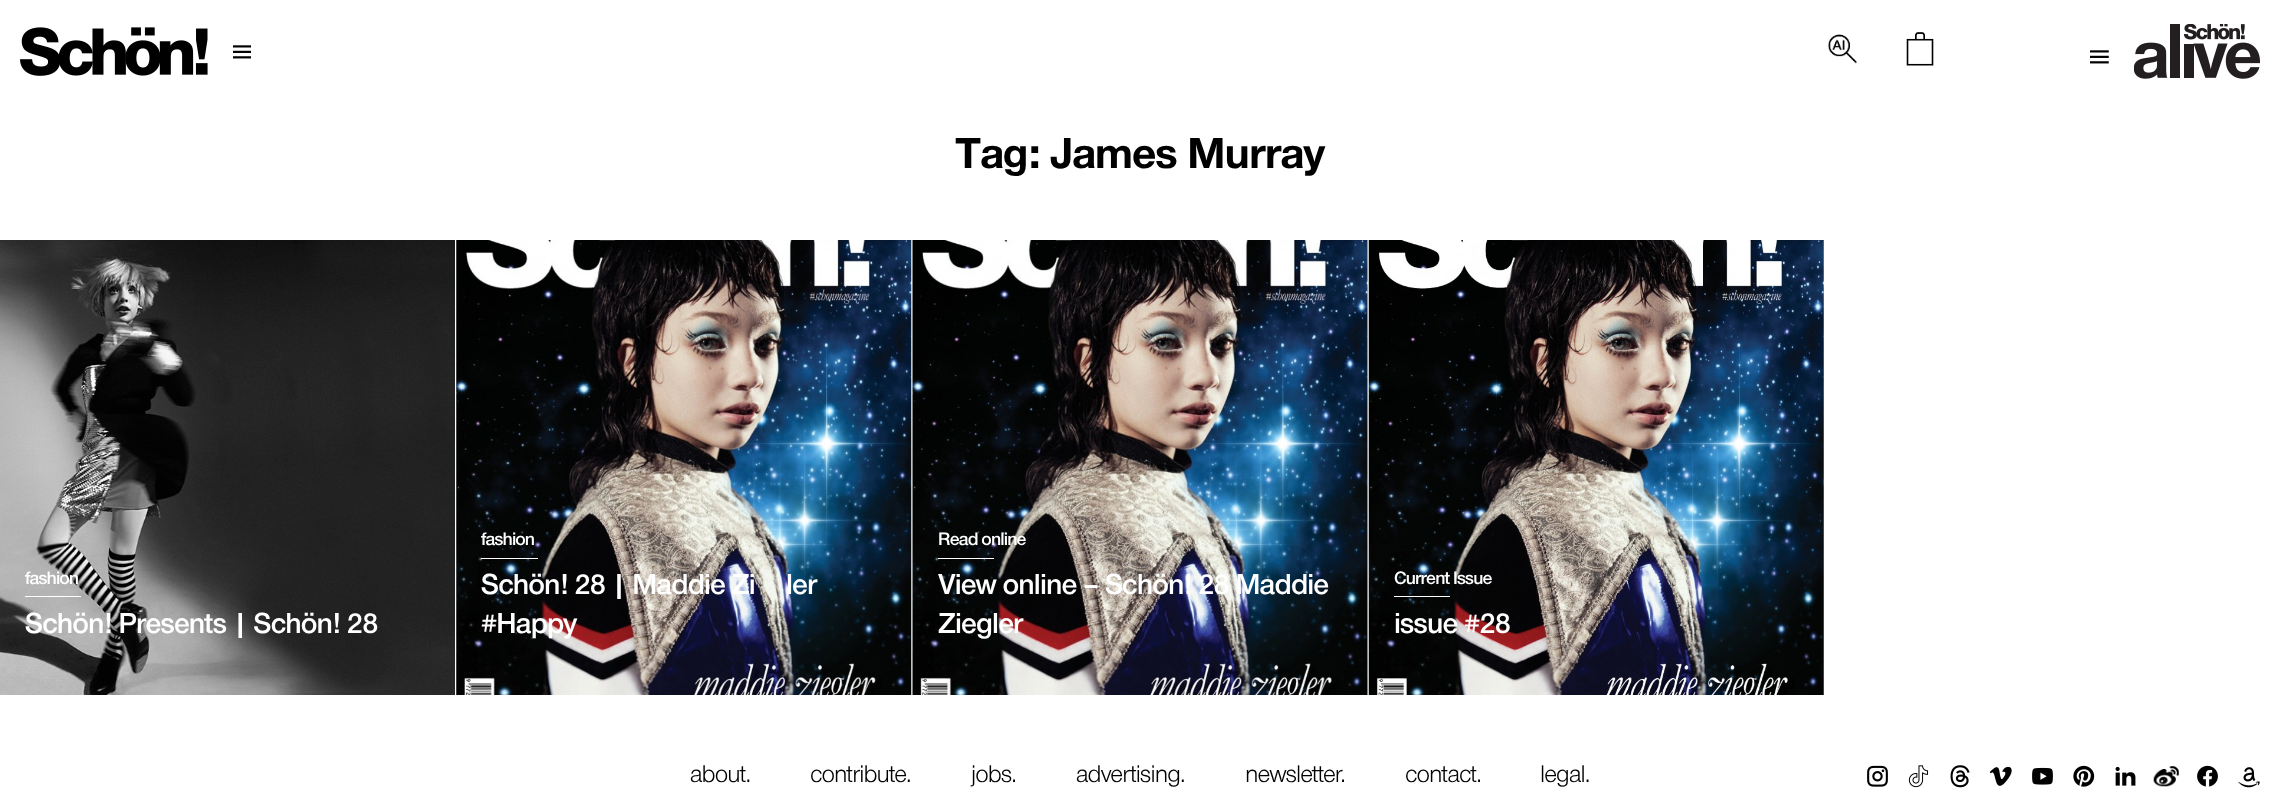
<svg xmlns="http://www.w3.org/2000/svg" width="2279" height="802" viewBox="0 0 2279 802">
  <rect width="100%" height="100%" fill="rgb(255,255,255)"/>
  <image x="20" y="27" width="188" height="49" href="pic1.png"/>
  <image x="233" y="45" width="18" height="14" href="pic2.png"/>
  <image x="1828" y="34" width="29" height="30" href="pic3.png"/>
  <image x="1906" y="32" width="28" height="34" href="pic4.png"/>
  <image x="2090" y="50" width="19" height="14" href="pic5.png"/>
  <image x="2134" y="24" width="126" height="55" href="pic6.png"/>
  <text x="955" y="168" font-family="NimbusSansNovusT" font-size="45" font-weight="bold" letter-spacing="-0.9" fill="rgb(0,0,0)">Tag: James Murray</text>
  <image x="0" y="240" width="455" height="455" href="pic7.png"/>
  <text x="25" y="584" font-family="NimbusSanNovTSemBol" font-size="18.75" font-weight="600" letter-spacing="-0.9" fill="rgb(255,255,255)">fashion</text>
  <rect x="25" y="596" width="56" height="1" fill="rgb(255,255,255)"/>
  <text x="25" y="633" font-family="NimbusSanNovTSemBol" font-size="30" font-weight="600" letter-spacing="-0.9" fill="rgb(255,255,255)">Schön! Presents | Schön! 28</text>
  <image x="456" y="240" width="456" height="455" href="pic8.png"/>
  <text x="481" y="545" font-family="NimbusSanNovTSemBol" font-size="18.75" font-weight="600" letter-spacing="-0.9" fill="rgb(255,255,255)">fashion</text>
  <rect x="481" y="558" width="57" height="1" fill="rgb(255,255,255)"/>
  <g font-family="NimbusSanNovTSemBol" font-size="30" font-weight="600" letter-spacing="-0.9" fill="rgb(255,255,255)">
    <text x="481" y="594">Schön! 28 | Maddie Zi</text>
    <text x="786" y="594">ler</text>
    <text x="481" y="633">#Happy</text>
  </g>
  <image x="912" y="240" width="456" height="455" href="pic9.png"/>
  <text x="938" y="545" font-family="NimbusSanNovTSemBol" font-size="18.75" font-weight="600" letter-spacing="-0.9" fill="rgb(255,255,255)">Read online</text>
  <rect x="938" y="558" width="56" height="1" fill="rgb(255,255,255)"/>
  <g font-family="NimbusSanNovTSemBol" font-size="30" font-weight="600" letter-spacing="-0.9" fill="rgb(255,255,255)">
    <text>
      <tspan x="938" y="594">View online – Schön! 28 Maddie</tspan>
      <tspan x="938" y="633">Ziegler</tspan>
    </text>
  </g>
  <image x="1368" y="240" width="456" height="455" href="pic10.png"/>
  <text x="1394" y="584" font-family="NimbusSanNovTSemBol" font-size="18.75" font-weight="600" letter-spacing="-0.9" fill="rgb(255,255,255)">Current Issue</text>
  <rect x="1394" y="596" width="56" height="1" fill="rgb(255,255,255)"/>
  <text x="1394" y="633" font-family="NimbusSanNovTSemBol" font-size="30" font-weight="600" letter-spacing="-0.9" fill="rgb(255,255,255)">issue #28</text>
  <g font-family="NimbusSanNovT" font-size="25" letter-spacing="-0.9" fill="rgb(0,0,0)">
    <text x="690" y="782">about.</text>
    <text x="810" y="782">contribute.</text>
    <text x="971" y="782">jobs.</text>
    <text x="1076" y="782">advertising.</text>
    <text x="1245" y="782">newsletter.</text>
    <text x="1405" y="782">contact.</text>
    <text x="1540" y="782">legal.</text>
  </g>
  <image x="1867" y="765" width="21" height="22" href="pic11.png"/>
  <image x="1908" y="765" width="21" height="23" href="pic12.png"/>
  <image x="1950" y="765" width="20" height="23" href="pic13.png"/>
  <image x="1989" y="766" width="23" height="20" href="pic14.png"/>
  <image x="2032" y="767" width="21" height="18" href="pic15.png"/>
  <image x="2073" y="765" width="22" height="22" href="pic16.png"/>
  <image x="2115" y="766" width="21" height="20" href="pic17.png"/>
  <image x="2153" y="766" width="26" height="21" href="pic18.png"/>
  <image x="2197" y="765" width="21" height="22" href="pic19.png"/>
  <image x="2238" y="767" width="22" height="21" href="pic20.png"/>
</svg>
